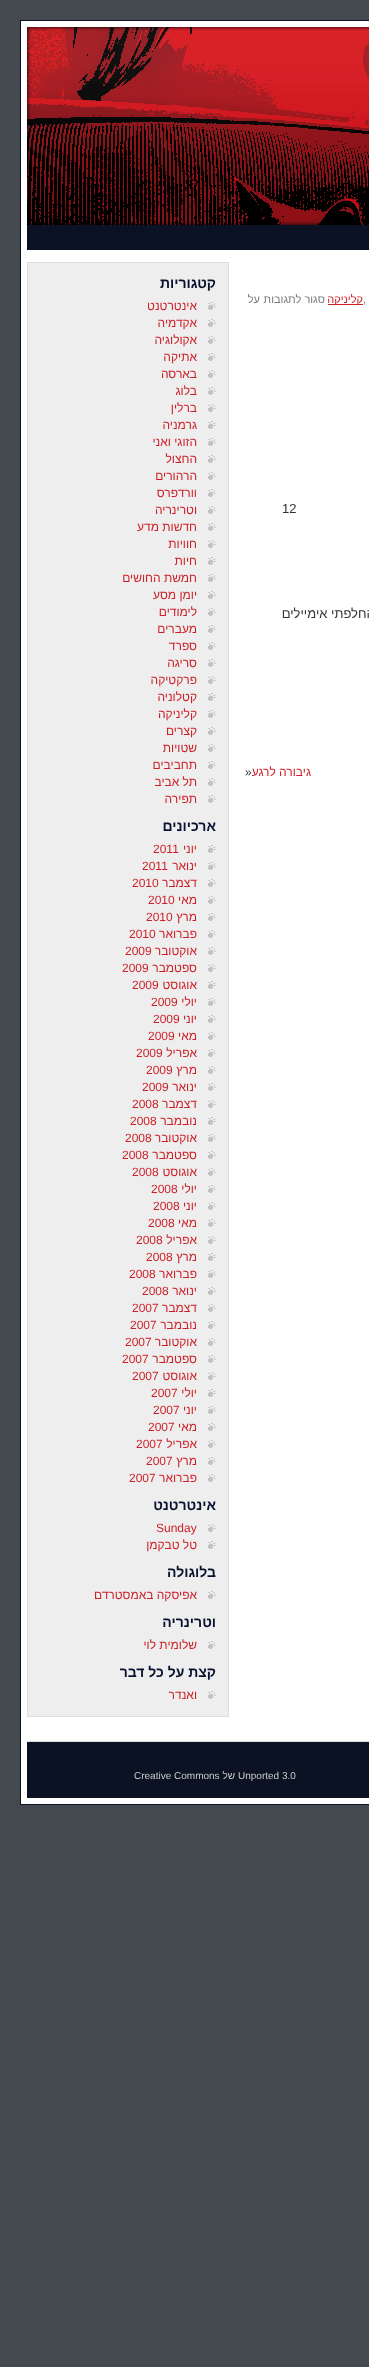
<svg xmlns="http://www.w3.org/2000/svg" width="369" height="2367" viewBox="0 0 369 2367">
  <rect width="100%" height="100%" fill="rgb(68,72,79)"/>
  <rect x="20.5" y="20.5" width="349" height="1784" fill="rgb(255,255,255)" stroke="rgb(11,18,36)"/>
  <image x="27" y="27" width="342" height="198" href="pic1.png"/>
  <rect x="27" y="225" width="342" height="25" fill="rgb(11,18,36)"/>
  <text x="363" y="303" font-family="Liberation Sans" font-size="11" fill="rgb(119,119,119)">,</text>
  <rect x="328" y="304" width="35" height="1" fill="rgb(204,31,39)"/>
  <text x="363" y="303" font-family="Liberation Sans" font-size="11" direction="rtl" fill="rgb(204,31,39)">קליניקה</text>
  <g font-family="Liberation Sans" font-size="11" direction="rtl" fill="rgb(119,119,119)">
    <text x="325" y="303">סגור לתגובות</text>
    <text x="260" y="303">על</text>
  </g>
  <text x="282" y="513" font-family="Liberation Sans" font-size="13" fill="rgb(51,51,51)">12</text>
  <text x="382" y="618" font-family="Liberation Sans" font-size="13" direction="rtl" fill="rgb(51,51,51)">. החלפתי אימיילים</text>
  <text x="311" y="776" font-family="Liberation Sans" font-size="12" direction="rtl" fill="rgb(204,31,39)">גיבורה לרגע</text>
  <text x="245" y="776" font-family="Liberation Sans" font-size="12" fill="rgb(51,51,51)">»</text>
  <rect x="27.5" y="262.5" width="201" height="1454" fill="rgb(238,238,238)" stroke="rgb(221,221,221)"/>
  <text x="216" y="288" font-family="Liberation Sans" font-size="14" font-weight="bold" direction="rtl" fill="rgb(8,18,46)">קטגוריות</text>
  <image x="207" y="302" width="9" height="8" href="pic2.png"/>
  <text x="197" y="310" font-family="Liberation Sans" font-size="12" direction="rtl" fill="rgb(204,31,39)">אינטרטנט</text>
  <image x="207" y="319" width="9" height="8" href="pic2.png"/>
  <text x="197" y="327" font-family="Liberation Sans" font-size="12" direction="rtl" fill="rgb(204,31,39)">אקדמיה</text>
  <image x="207" y="336" width="9" height="8" href="pic2.png"/>
  <text x="197" y="344" font-family="Liberation Sans" font-size="12" direction="rtl" fill="rgb(204,31,39)">אקולוגיה</text>
  <image x="207" y="353" width="9" height="8" href="pic2.png"/>
  <text x="197" y="361" font-family="Liberation Sans" font-size="12" direction="rtl" fill="rgb(204,31,39)">אתיקה</text>
  <image x="207" y="370" width="9" height="8" href="pic2.png"/>
  <text x="197" y="378" font-family="Liberation Sans" font-size="12" direction="rtl" fill="rgb(204,31,39)">בארסה</text>
  <image x="207" y="387" width="9" height="8" href="pic2.png"/>
  <text x="197" y="395" font-family="Liberation Sans" font-size="12" direction="rtl" fill="rgb(204,31,39)">בלוג</text>
  <image x="207" y="404" width="9" height="8" href="pic2.png"/>
  <text x="197" y="412" font-family="Liberation Sans" font-size="12" direction="rtl" fill="rgb(204,31,39)">ברלין</text>
  <image x="207" y="421" width="9" height="8" href="pic2.png"/>
  <text x="197" y="429" font-family="Liberation Sans" font-size="12" direction="rtl" fill="rgb(204,31,39)">גרמניה</text>
  <image x="207" y="438" width="9" height="8" href="pic2.png"/>
  <text x="197" y="446" font-family="Liberation Sans" font-size="12" direction="rtl" fill="rgb(204,31,39)">הזוגי ואני</text>
  <image x="207" y="455" width="9" height="8" href="pic2.png"/>
  <text x="197" y="463" font-family="Liberation Sans" font-size="12" direction="rtl" fill="rgb(204,31,39)">החצול</text>
  <image x="207" y="472" width="9" height="8" href="pic2.png"/>
  <text x="197" y="480" font-family="Liberation Sans" font-size="12" direction="rtl" fill="rgb(204,31,39)">הרהורים</text>
  <image x="207" y="489" width="9" height="8" href="pic2.png"/>
  <text x="197" y="497" font-family="Liberation Sans" font-size="12" direction="rtl" fill="rgb(204,31,39)">וורדפרס</text>
  <image x="207" y="506" width="9" height="8" href="pic2.png"/>
  <text x="197" y="514" font-family="Liberation Sans" font-size="12" direction="rtl" fill="rgb(204,31,39)">וטרינריה</text>
  <image x="207" y="523" width="9" height="8" href="pic2.png"/>
  <text x="197" y="531" font-family="Liberation Sans" font-size="12" direction="rtl" fill="rgb(204,31,39)">חדשות מדע</text>
  <image x="207" y="540" width="9" height="8" href="pic2.png"/>
  <text x="197" y="548" font-family="Liberation Sans" font-size="12" direction="rtl" fill="rgb(204,31,39)">חוויות</text>
  <image x="207" y="557" width="9" height="8" href="pic2.png"/>
  <text x="197" y="565" font-family="Liberation Sans" font-size="12" direction="rtl" fill="rgb(204,31,39)">חיות</text>
  <image x="207" y="574" width="9" height="8" href="pic2.png"/>
  <text x="197" y="582" font-family="Liberation Sans" font-size="12" direction="rtl" fill="rgb(204,31,39)">חמשת החושים</text>
  <image x="207" y="591" width="9" height="8" href="pic2.png"/>
  <text x="197" y="599" font-family="Liberation Sans" font-size="12" direction="rtl" fill="rgb(204,31,39)">יומן מסע</text>
  <image x="207" y="608" width="9" height="8" href="pic2.png"/>
  <text x="197" y="616" font-family="Liberation Sans" font-size="12" direction="rtl" fill="rgb(204,31,39)">לימודים</text>
  <image x="207" y="625" width="9" height="8" href="pic2.png"/>
  <text x="197" y="633" font-family="Liberation Sans" font-size="12" direction="rtl" fill="rgb(204,31,39)">מעברים</text>
  <image x="207" y="642" width="9" height="8" href="pic2.png"/>
  <text x="197" y="650" font-family="Liberation Sans" font-size="12" direction="rtl" fill="rgb(204,31,39)">ספרד</text>
  <image x="207" y="659" width="9" height="8" href="pic2.png"/>
  <text x="197" y="667" font-family="Liberation Sans" font-size="12" direction="rtl" fill="rgb(204,31,39)">סריגה</text>
  <image x="207" y="676" width="9" height="8" href="pic2.png"/>
  <text x="197" y="684" font-family="Liberation Sans" font-size="12" direction="rtl" fill="rgb(204,31,39)">פרקטיקה</text>
  <image x="207" y="693" width="9" height="8" href="pic2.png"/>
  <text x="197" y="701" font-family="Liberation Sans" font-size="12" direction="rtl" fill="rgb(204,31,39)">קטלוניה</text>
  <image x="207" y="710" width="9" height="8" href="pic2.png"/>
  <text x="197" y="718" font-family="Liberation Sans" font-size="12" direction="rtl" fill="rgb(204,31,39)">קליניקה</text>
  <image x="207" y="727" width="9" height="8" href="pic2.png"/>
  <text x="197" y="735" font-family="Liberation Sans" font-size="12" direction="rtl" fill="rgb(204,31,39)">קצרים</text>
  <image x="207" y="744" width="9" height="8" href="pic2.png"/>
  <text x="197" y="752" font-family="Liberation Sans" font-size="12" direction="rtl" fill="rgb(204,31,39)">שטויות</text>
  <image x="207" y="761" width="9" height="8" href="pic2.png"/>
  <text x="197" y="769" font-family="Liberation Sans" font-size="12" direction="rtl" fill="rgb(204,31,39)">תחביבים</text>
  <image x="207" y="778" width="9" height="8" href="pic2.png"/>
  <text x="197" y="786" font-family="Liberation Sans" font-size="12" direction="rtl" fill="rgb(204,31,39)">תל אביב</text>
  <image x="207" y="795" width="9" height="8" href="pic2.png"/>
  <text x="197" y="803" font-family="Liberation Sans" font-size="12" direction="rtl" fill="rgb(204,31,39)">תפירה</text>
  <text x="216" y="831" font-family="Liberation Sans" font-size="14" font-weight="bold" direction="rtl" fill="rgb(8,18,46)">ארכיונים</text>
  <image x="207" y="845" width="9" height="8" href="pic2.png"/>
  <text x="197" y="853" font-family="Liberation Sans" font-size="12" direction="rtl" fill="rgb(204,31,39)">יוני</text>
  <text x="153" y="853" font-family="Liberation Sans" font-size="12" fill="rgb(204,31,39)">2011</text>
  <image x="207" y="862" width="9" height="8" href="pic2.png"/>
  <text x="197" y="870" font-family="Liberation Sans" font-size="12" direction="rtl" fill="rgb(204,31,39)">ינואר</text>
  <text x="142" y="870" font-family="Liberation Sans" font-size="12" fill="rgb(204,31,39)">2011</text>
  <image x="207" y="879" width="9" height="8" href="pic2.png"/>
  <text x="197" y="887" font-family="Liberation Sans" font-size="12" direction="rtl" fill="rgb(204,31,39)">דצמבר</text>
  <text x="132" y="887" font-family="Liberation Sans" font-size="12" fill="rgb(204,31,39)">2010</text>
  <image x="207" y="896" width="9" height="8" href="pic2.png"/>
  <text x="197" y="904" font-family="Liberation Sans" font-size="12" direction="rtl" fill="rgb(204,31,39)">מאי</text>
  <text x="148" y="904" font-family="Liberation Sans" font-size="12" fill="rgb(204,31,39)">2010</text>
  <image x="207" y="913" width="9" height="8" href="pic2.png"/>
  <text x="197" y="921" font-family="Liberation Sans" font-size="12" direction="rtl" fill="rgb(204,31,39)">מרץ</text>
  <text x="146" y="921" font-family="Liberation Sans" font-size="12" fill="rgb(204,31,39)">2010</text>
  <image x="207" y="930" width="9" height="8" href="pic2.png"/>
  <text x="197" y="938" font-family="Liberation Sans" font-size="12" direction="rtl" fill="rgb(204,31,39)">פברואר</text>
  <text x="129" y="938" font-family="Liberation Sans" font-size="12" fill="rgb(204,31,39)">2010</text>
  <image x="207" y="947" width="9" height="8" href="pic2.png"/>
  <text x="197" y="955" font-family="Liberation Sans" font-size="12" direction="rtl" fill="rgb(204,31,39)">אוקטובר</text>
  <text x="125" y="955" font-family="Liberation Sans" font-size="12" fill="rgb(204,31,39)">2009</text>
  <image x="207" y="964" width="9" height="8" href="pic2.png"/>
  <text x="197" y="972" font-family="Liberation Sans" font-size="12" direction="rtl" fill="rgb(204,31,39)">ספטמבר</text>
  <text x="122" y="972" font-family="Liberation Sans" font-size="12" fill="rgb(204,31,39)">2009</text>
  <image x="207" y="981" width="9" height="8" href="pic2.png"/>
  <text x="197" y="989" font-family="Liberation Sans" font-size="12" direction="rtl" fill="rgb(204,31,39)">אוגוסט</text>
  <text x="132" y="989" font-family="Liberation Sans" font-size="12" fill="rgb(204,31,39)">2009</text>
  <image x="207" y="998" width="9" height="8" href="pic2.png"/>
  <text x="197" y="1006" font-family="Liberation Sans" font-size="12" direction="rtl" fill="rgb(204,31,39)">יולי</text>
  <text x="151" y="1006" font-family="Liberation Sans" font-size="12" fill="rgb(204,31,39)">2009</text>
  <image x="207" y="1015" width="9" height="8" href="pic2.png"/>
  <text x="197" y="1023" font-family="Liberation Sans" font-size="12" direction="rtl" fill="rgb(204,31,39)">יוני</text>
  <text x="153" y="1023" font-family="Liberation Sans" font-size="12" fill="rgb(204,31,39)">2009</text>
  <image x="207" y="1032" width="9" height="8" href="pic2.png"/>
  <text x="197" y="1040" font-family="Liberation Sans" font-size="12" direction="rtl" fill="rgb(204,31,39)">מאי</text>
  <text x="148" y="1040" font-family="Liberation Sans" font-size="12" fill="rgb(204,31,39)">2009</text>
  <image x="207" y="1049" width="9" height="8" href="pic2.png"/>
  <text x="197" y="1057" font-family="Liberation Sans" font-size="12" direction="rtl" fill="rgb(204,31,39)">אפריל</text>
  <text x="136" y="1057" font-family="Liberation Sans" font-size="12" fill="rgb(204,31,39)">2009</text>
  <image x="207" y="1066" width="9" height="8" href="pic2.png"/>
  <text x="197" y="1074" font-family="Liberation Sans" font-size="12" direction="rtl" fill="rgb(204,31,39)">מרץ</text>
  <text x="146" y="1074" font-family="Liberation Sans" font-size="12" fill="rgb(204,31,39)">2009</text>
  <image x="207" y="1083" width="9" height="8" href="pic2.png"/>
  <text x="197" y="1091" font-family="Liberation Sans" font-size="12" direction="rtl" fill="rgb(204,31,39)">ינואר</text>
  <text x="142" y="1091" font-family="Liberation Sans" font-size="12" fill="rgb(204,31,39)">2009</text>
  <image x="207" y="1100" width="9" height="8" href="pic2.png"/>
  <text x="197" y="1108" font-family="Liberation Sans" font-size="12" direction="rtl" fill="rgb(204,31,39)">דצמבר</text>
  <text x="132" y="1108" font-family="Liberation Sans" font-size="12" fill="rgb(204,31,39)">2008</text>
  <image x="207" y="1117" width="9" height="8" href="pic2.png"/>
  <text x="197" y="1125" font-family="Liberation Sans" font-size="12" direction="rtl" fill="rgb(204,31,39)">נובמבר</text>
  <text x="130" y="1125" font-family="Liberation Sans" font-size="12" fill="rgb(204,31,39)">2008</text>
  <image x="207" y="1134" width="9" height="8" href="pic2.png"/>
  <text x="197" y="1142" font-family="Liberation Sans" font-size="12" direction="rtl" fill="rgb(204,31,39)">אוקטובר</text>
  <text x="125" y="1142" font-family="Liberation Sans" font-size="12" fill="rgb(204,31,39)">2008</text>
  <image x="207" y="1151" width="9" height="8" href="pic2.png"/>
  <text x="197" y="1159" font-family="Liberation Sans" font-size="12" direction="rtl" fill="rgb(204,31,39)">ספטמבר</text>
  <text x="122" y="1159" font-family="Liberation Sans" font-size="12" fill="rgb(204,31,39)">2008</text>
  <image x="207" y="1168" width="9" height="8" href="pic2.png"/>
  <text x="197" y="1176" font-family="Liberation Sans" font-size="12" direction="rtl" fill="rgb(204,31,39)">אוגוסט</text>
  <text x="132" y="1176" font-family="Liberation Sans" font-size="12" fill="rgb(204,31,39)">2008</text>
  <image x="207" y="1185" width="9" height="8" href="pic2.png"/>
  <text x="197" y="1193" font-family="Liberation Sans" font-size="12" direction="rtl" fill="rgb(204,31,39)">יולי</text>
  <text x="151" y="1193" font-family="Liberation Sans" font-size="12" fill="rgb(204,31,39)">2008</text>
  <image x="207" y="1202" width="9" height="8" href="pic2.png"/>
  <text x="197" y="1210" font-family="Liberation Sans" font-size="12" direction="rtl" fill="rgb(204,31,39)">יוני</text>
  <text x="153" y="1210" font-family="Liberation Sans" font-size="12" fill="rgb(204,31,39)">2008</text>
  <image x="207" y="1219" width="9" height="8" href="pic2.png"/>
  <text x="197" y="1227" font-family="Liberation Sans" font-size="12" direction="rtl" fill="rgb(204,31,39)">מאי</text>
  <text x="148" y="1227" font-family="Liberation Sans" font-size="12" fill="rgb(204,31,39)">2008</text>
  <image x="207" y="1236" width="9" height="8" href="pic2.png"/>
  <text x="197" y="1244" font-family="Liberation Sans" font-size="12" direction="rtl" fill="rgb(204,31,39)">אפריל</text>
  <text x="136" y="1244" font-family="Liberation Sans" font-size="12" fill="rgb(204,31,39)">2008</text>
  <image x="207" y="1253" width="9" height="8" href="pic2.png"/>
  <text x="197" y="1261" font-family="Liberation Sans" font-size="12" direction="rtl" fill="rgb(204,31,39)">מרץ</text>
  <text x="146" y="1261" font-family="Liberation Sans" font-size="12" fill="rgb(204,31,39)">2008</text>
  <image x="207" y="1270" width="9" height="8" href="pic2.png"/>
  <text x="197" y="1278" font-family="Liberation Sans" font-size="12" direction="rtl" fill="rgb(204,31,39)">פברואר</text>
  <text x="129" y="1278" font-family="Liberation Sans" font-size="12" fill="rgb(204,31,39)">2008</text>
  <image x="207" y="1287" width="9" height="8" href="pic2.png"/>
  <text x="197" y="1295" font-family="Liberation Sans" font-size="12" direction="rtl" fill="rgb(204,31,39)">ינואר</text>
  <text x="142" y="1295" font-family="Liberation Sans" font-size="12" fill="rgb(204,31,39)">2008</text>
  <image x="207" y="1304" width="9" height="8" href="pic2.png"/>
  <text x="197" y="1312" font-family="Liberation Sans" font-size="12" direction="rtl" fill="rgb(204,31,39)">דצמבר</text>
  <text x="132" y="1312" font-family="Liberation Sans" font-size="12" fill="rgb(204,31,39)">2007</text>
  <image x="207" y="1321" width="9" height="8" href="pic2.png"/>
  <text x="197" y="1329" font-family="Liberation Sans" font-size="12" direction="rtl" fill="rgb(204,31,39)">נובמבר</text>
  <text x="130" y="1329" font-family="Liberation Sans" font-size="12" fill="rgb(204,31,39)">2007</text>
  <image x="207" y="1338" width="9" height="8" href="pic2.png"/>
  <text x="197" y="1346" font-family="Liberation Sans" font-size="12" direction="rtl" fill="rgb(204,31,39)">אוקטובר</text>
  <text x="125" y="1346" font-family="Liberation Sans" font-size="12" fill="rgb(204,31,39)">2007</text>
  <image x="207" y="1355" width="9" height="8" href="pic2.png"/>
  <text x="197" y="1363" font-family="Liberation Sans" font-size="12" direction="rtl" fill="rgb(204,31,39)">ספטמבר</text>
  <text x="122" y="1363" font-family="Liberation Sans" font-size="12" fill="rgb(204,31,39)">2007</text>
  <image x="207" y="1372" width="9" height="8" href="pic2.png"/>
  <text x="197" y="1380" font-family="Liberation Sans" font-size="12" direction="rtl" fill="rgb(204,31,39)">אוגוסט</text>
  <text x="132" y="1380" font-family="Liberation Sans" font-size="12" fill="rgb(204,31,39)">2007</text>
  <image x="207" y="1389" width="9" height="8" href="pic2.png"/>
  <text x="197" y="1397" font-family="Liberation Sans" font-size="12" direction="rtl" fill="rgb(204,31,39)">יולי</text>
  <text x="151" y="1397" font-family="Liberation Sans" font-size="12" fill="rgb(204,31,39)">2007</text>
  <image x="207" y="1406" width="9" height="8" href="pic2.png"/>
  <text x="197" y="1414" font-family="Liberation Sans" font-size="12" direction="rtl" fill="rgb(204,31,39)">יוני</text>
  <text x="153" y="1414" font-family="Liberation Sans" font-size="12" fill="rgb(204,31,39)">2007</text>
  <image x="207" y="1423" width="9" height="8" href="pic2.png"/>
  <text x="197" y="1431" font-family="Liberation Sans" font-size="12" direction="rtl" fill="rgb(204,31,39)">מאי</text>
  <text x="148" y="1431" font-family="Liberation Sans" font-size="12" fill="rgb(204,31,39)">2007</text>
  <image x="207" y="1440" width="9" height="8" href="pic2.png"/>
  <text x="197" y="1448" font-family="Liberation Sans" font-size="12" direction="rtl" fill="rgb(204,31,39)">אפריל</text>
  <text x="136" y="1448" font-family="Liberation Sans" font-size="12" fill="rgb(204,31,39)">2007</text>
  <image x="207" y="1457" width="9" height="8" href="pic2.png"/>
  <text x="197" y="1465" font-family="Liberation Sans" font-size="12" direction="rtl" fill="rgb(204,31,39)">מרץ</text>
  <text x="146" y="1465" font-family="Liberation Sans" font-size="12" fill="rgb(204,31,39)">2007</text>
  <image x="207" y="1474" width="9" height="8" href="pic2.png"/>
  <text x="197" y="1482" font-family="Liberation Sans" font-size="12" direction="rtl" fill="rgb(204,31,39)">פברואר</text>
  <text x="129" y="1482" font-family="Liberation Sans" font-size="12" fill="rgb(204,31,39)">2007</text>
  <text x="216" y="1510" font-family="Liberation Sans" font-size="14" font-weight="bold" direction="rtl" fill="rgb(8,18,46)">אינטרטנט</text>
  <image x="207" y="1524" width="9" height="8" href="pic2.png"/>
  <text x="156" y="1532" font-family="Liberation Sans" font-size="12" fill="rgb(204,31,39)">Sunday</text>
  <image x="207" y="1541" width="9" height="8" href="pic2.png"/>
  <text x="197" y="1549" font-family="Liberation Sans" font-size="12" direction="rtl" fill="rgb(204,31,39)">טל טבקמן</text>
  <text x="216" y="1577" font-family="Liberation Sans" font-size="14" font-weight="bold" direction="rtl" fill="rgb(8,18,46)">בלוגולה</text>
  <image x="207" y="1591" width="9" height="8" href="pic2.png"/>
  <text x="197" y="1599" font-family="Liberation Sans" font-size="12" direction="rtl" fill="rgb(204,31,39)">אפיסקה באמסטרדם</text>
  <text x="216" y="1627" font-family="Liberation Sans" font-size="14" font-weight="bold" direction="rtl" fill="rgb(8,18,46)">וטרינריה</text>
  <image x="207" y="1641" width="9" height="8" href="pic2.png"/>
  <text x="197" y="1649" font-family="Liberation Sans" font-size="12" direction="rtl" fill="rgb(204,31,39)">שלומית לוי</text>
  <text x="216" y="1677" font-family="Liberation Sans" font-size="14" font-weight="bold" direction="rtl" fill="rgb(8,18,46)">קצת על כל דבר</text>
  <image x="207" y="1691" width="9" height="8" href="pic2.png"/>
  <text x="197" y="1699" font-family="Liberation Sans" font-size="12" direction="rtl" fill="rgb(204,31,39)">ואנדר</text>
  <rect x="27" y="1742" width="342" height="56" fill="rgb(11,18,36)"/>
  <rect x="27" y="1741" width="342" height="1" fill="rgb(222,222,222)"/>
  <text x="238" y="1779" font-family="Liberation Sans" font-size="10" fill="rgb(204,204,204)">Unported 3.0</text>
  <text x="235" y="1779" font-family="Liberation Sans" font-size="10" direction="rtl" fill="rgb(204,204,204)">של</text>
  <text x="134" y="1779" font-family="Liberation Sans" font-size="10" fill="rgb(204,204,204)">Creative Commons</text>
</svg>
